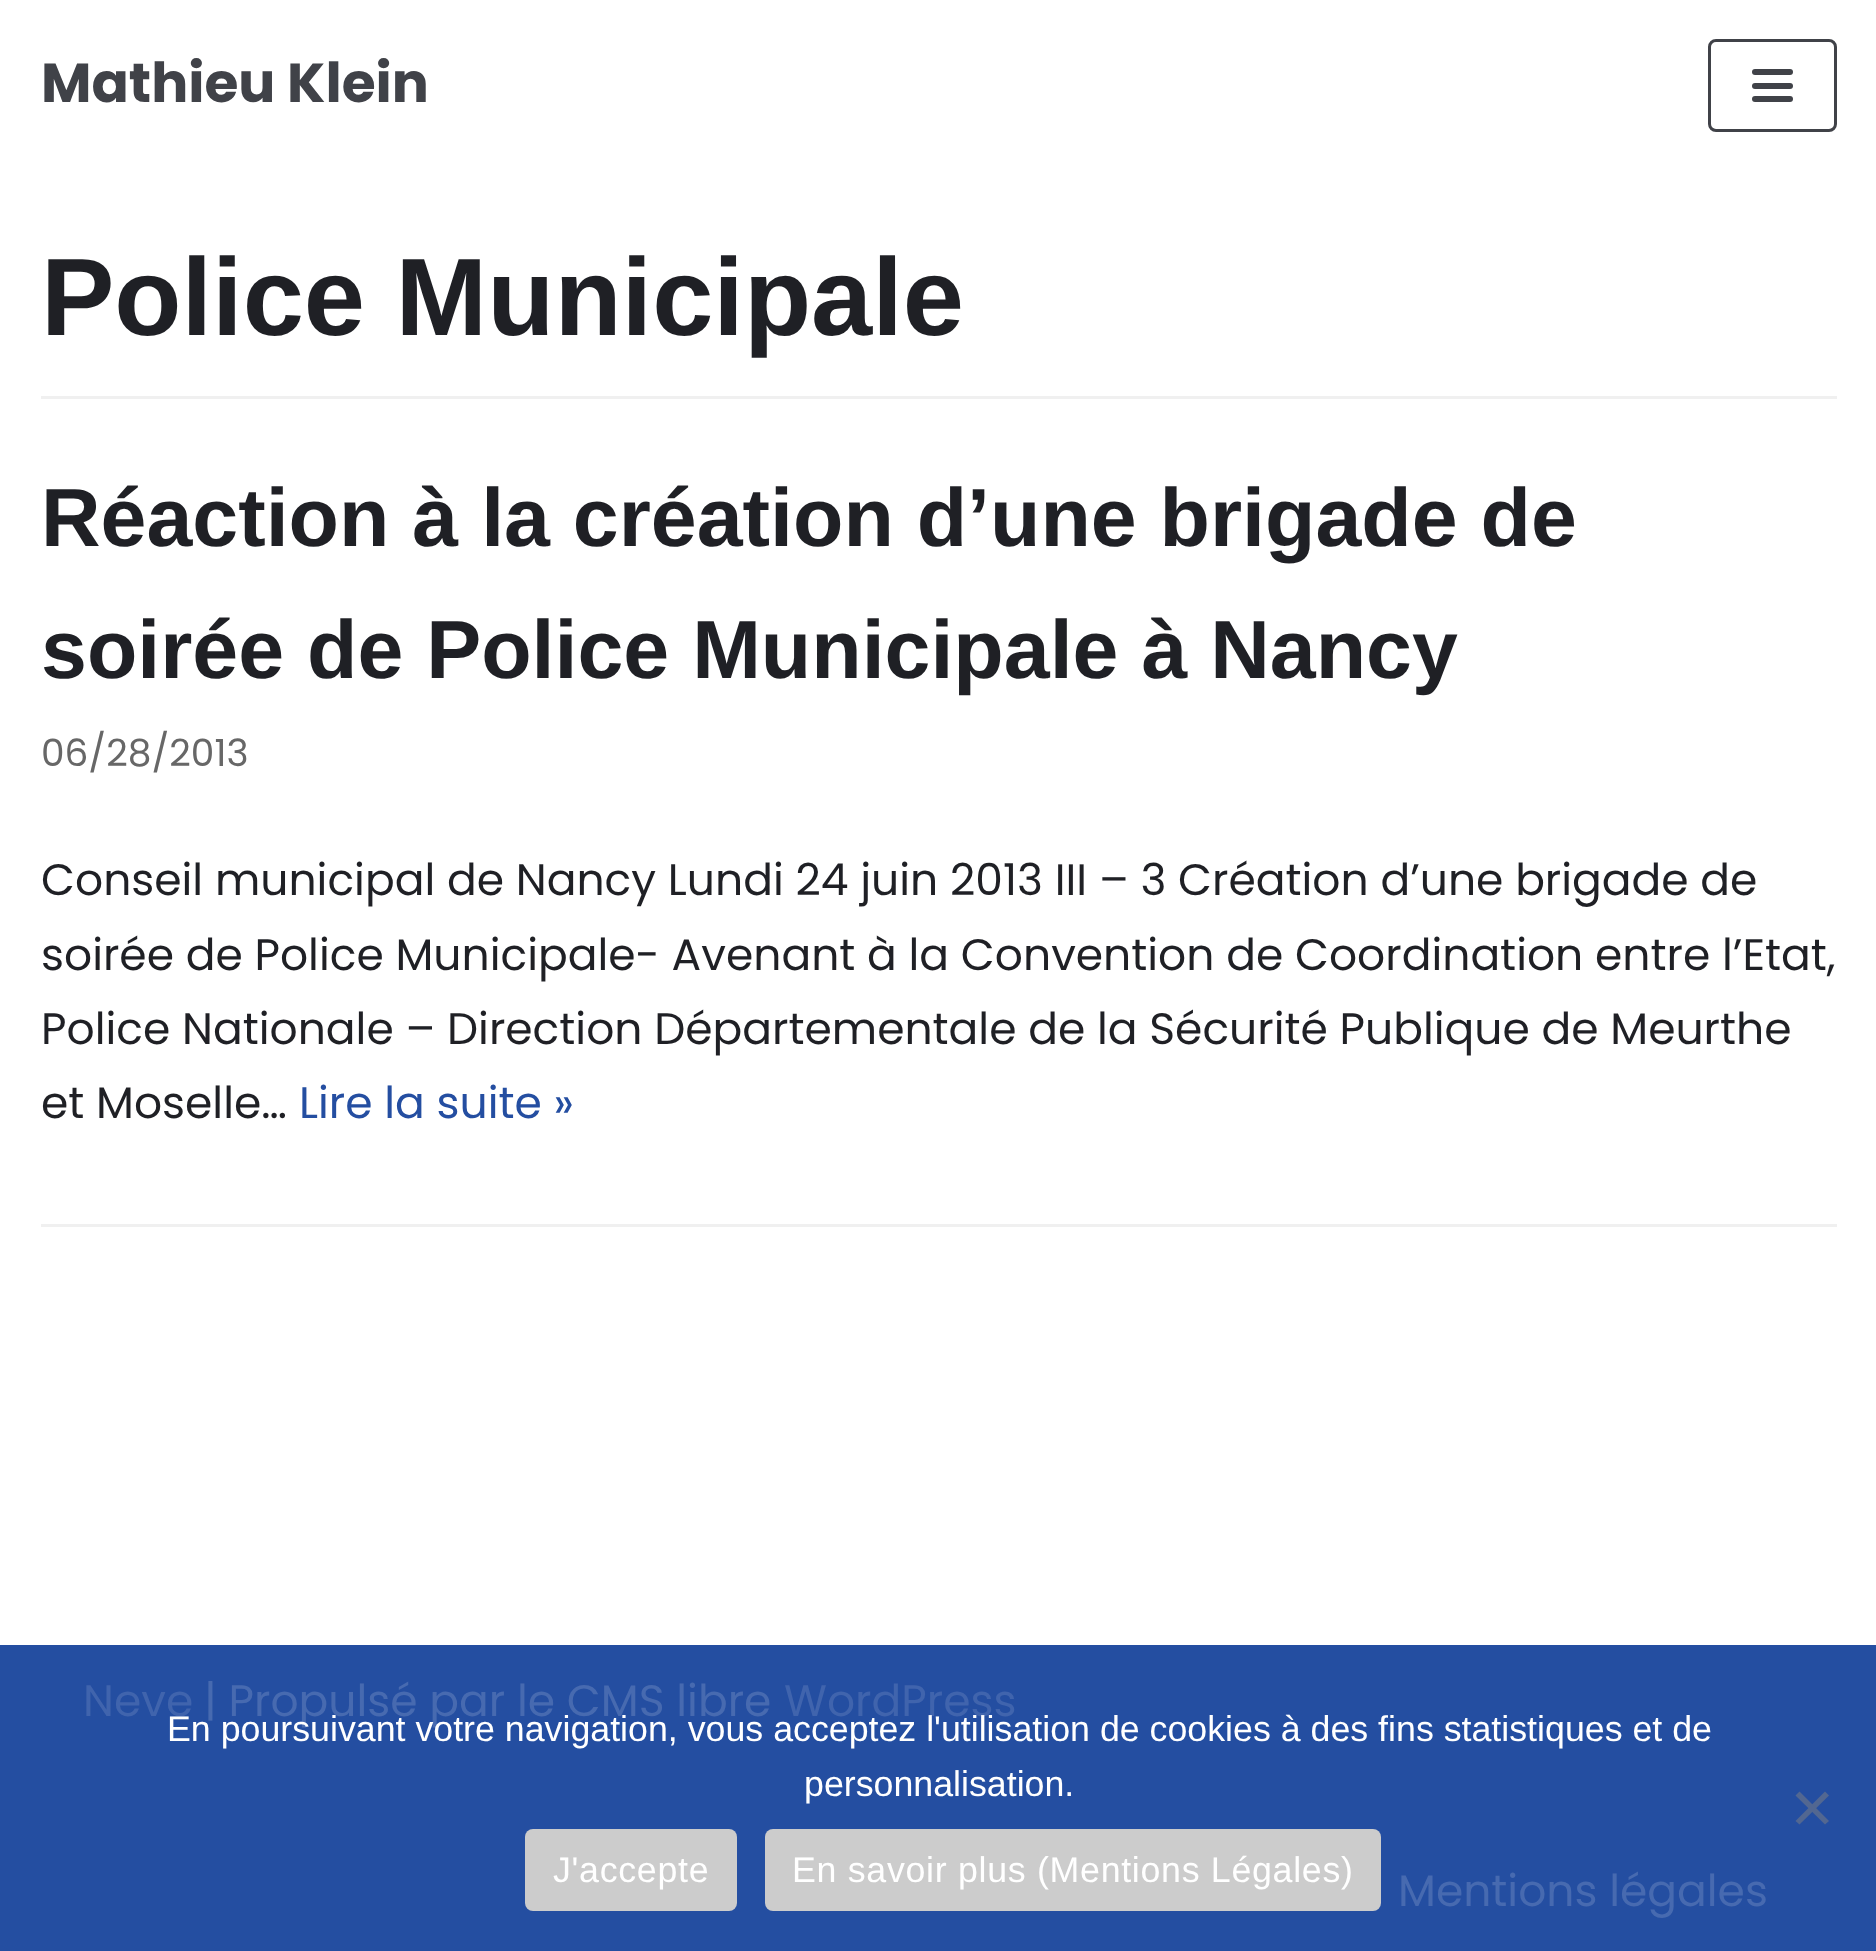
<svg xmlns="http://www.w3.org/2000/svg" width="1876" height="1951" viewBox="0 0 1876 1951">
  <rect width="100%" height="100%" fill="rgb(255,255,255)"/>
  <text x="41" y="102" font-family="Poppins" font-size="55" font-weight="bold" fill="rgb(64,66,72)">Mathieu Klein</text>
  <rect x="1709.5" y="40.5" width="126" height="90" rx="6.5" fill="none" stroke="rgb(64,66,72)" stroke-width="3"/>
  <rect x="1752" y="69" width="41" height="6" rx="3" fill="rgb(64,66,72)"/>
  <rect x="1752" y="83" width="41" height="6" rx="3" fill="rgb(64,66,72)"/>
  <rect x="1752" y="96" width="41" height="6" rx="3" fill="rgb(64,66,72)"/>
  <rect x="41" y="396" width="1796" height="3" fill="rgb(240,240,240)"/>
  <text x="41" y="335" font-family="Liberation Sans" font-size="110" font-weight="bold" fill="rgb(31,32,37)">Police Municipale</text>
  <rect x="41" y="1224" width="1796" height="3" fill="rgb(240,240,240)"/>
  <g font-family="Liberation Sans" font-size="82.5" font-weight="bold" fill="rgb(31,32,37)">
    <text>
      <tspan x="41" y="546">Réaction à la création d’une brigade de</tspan>
      <tspan x="41" y="678">soirée de Police Municipale à Nancy</tspan>
    </text>
  </g>
  <text x="41" y="766" font-family="Poppins" font-size="37.5" fill="rgb(103,103,103)">06/28/2013</text>
  <g font-family="Poppins" font-size="44" fill="rgb(31,32,37)">
    <text>
      <tspan x="41" y="895">Conseil municipal de Nancy Lundi 24 juin 2013 III – 3 Création d’une brigade de</tspan>
      <tspan x="41" y="970">soirée de Police Municipale- Avenant à la Convention de Coordination entre l’Etat,</tspan>
      <tspan x="41" y="1044">Police Nationale – Direction Départementale de la Sécurité Publique de Meurthe</tspan>
      <tspan x="41" y="1118">et Moselle…</tspan>
    </text>
  </g>
  <text x="299" y="1118" font-family="Poppins" font-size="44" fill="rgb(36,78,161)">Lire la suite »</text>
  <rect x="0" y="1645" width="1876" height="306" fill="rgb(36,78,161)"/>
  <text x="83" y="1716" font-family="Poppins" font-size="44" fill="rgb(64,100,173)">Neve</text>
  <text x="204" y="1716" font-family="Poppins" font-size="44" fill="rgb(71,106,176)">| Propulsé par le CMS libre</text>
  <text x="784" y="1716" font-family="Poppins" font-size="44" fill="rgb(64,100,173)">WordPress</text>
  <text x="1398" y="1906" font-family="Poppins" font-size="44" fill="rgb(71,106,176)">Mentions légales</text>
  <g font-family="Liberation Sans" font-size="35.75" fill="rgb(255,255,255)">
    <text x="167" y="1741">En poursuivant votre navigation, vous acceptez l'utilisation de cookies à des fins statistiques et de</text>
    <text x="804" y="1796">personnalisation.</text>
  </g>
  <path d="M1825 1791.5L1829 1795.5L1799.5 1824.5L1795.5 1821Z" fill="rgb(82,103,145)"/>
  <path d="M1795.5 1795.5L1799.5 1791.5L1829 1821L1825 1824.5Z" fill="rgb(82,103,145)"/>
  <rect x="525" y="1829" width="212" height="82" rx="8" fill="rgb(204,204,204)"/>
  <text x="553" y="1882" font-family="Liberation Sans" font-size="35.75" letter-spacing="0.7" fill="rgb(255,255,255)">J'accepte</text>
  <rect x="765" y="1829" width="616" height="82" rx="8" fill="rgb(204,204,204)"/>
  <text x="792" y="1882" font-family="Liberation Sans" font-size="35.75" letter-spacing="0.7" fill="rgb(255,255,255)">En savoir plus (Mentions Légales)</text>
</svg>
